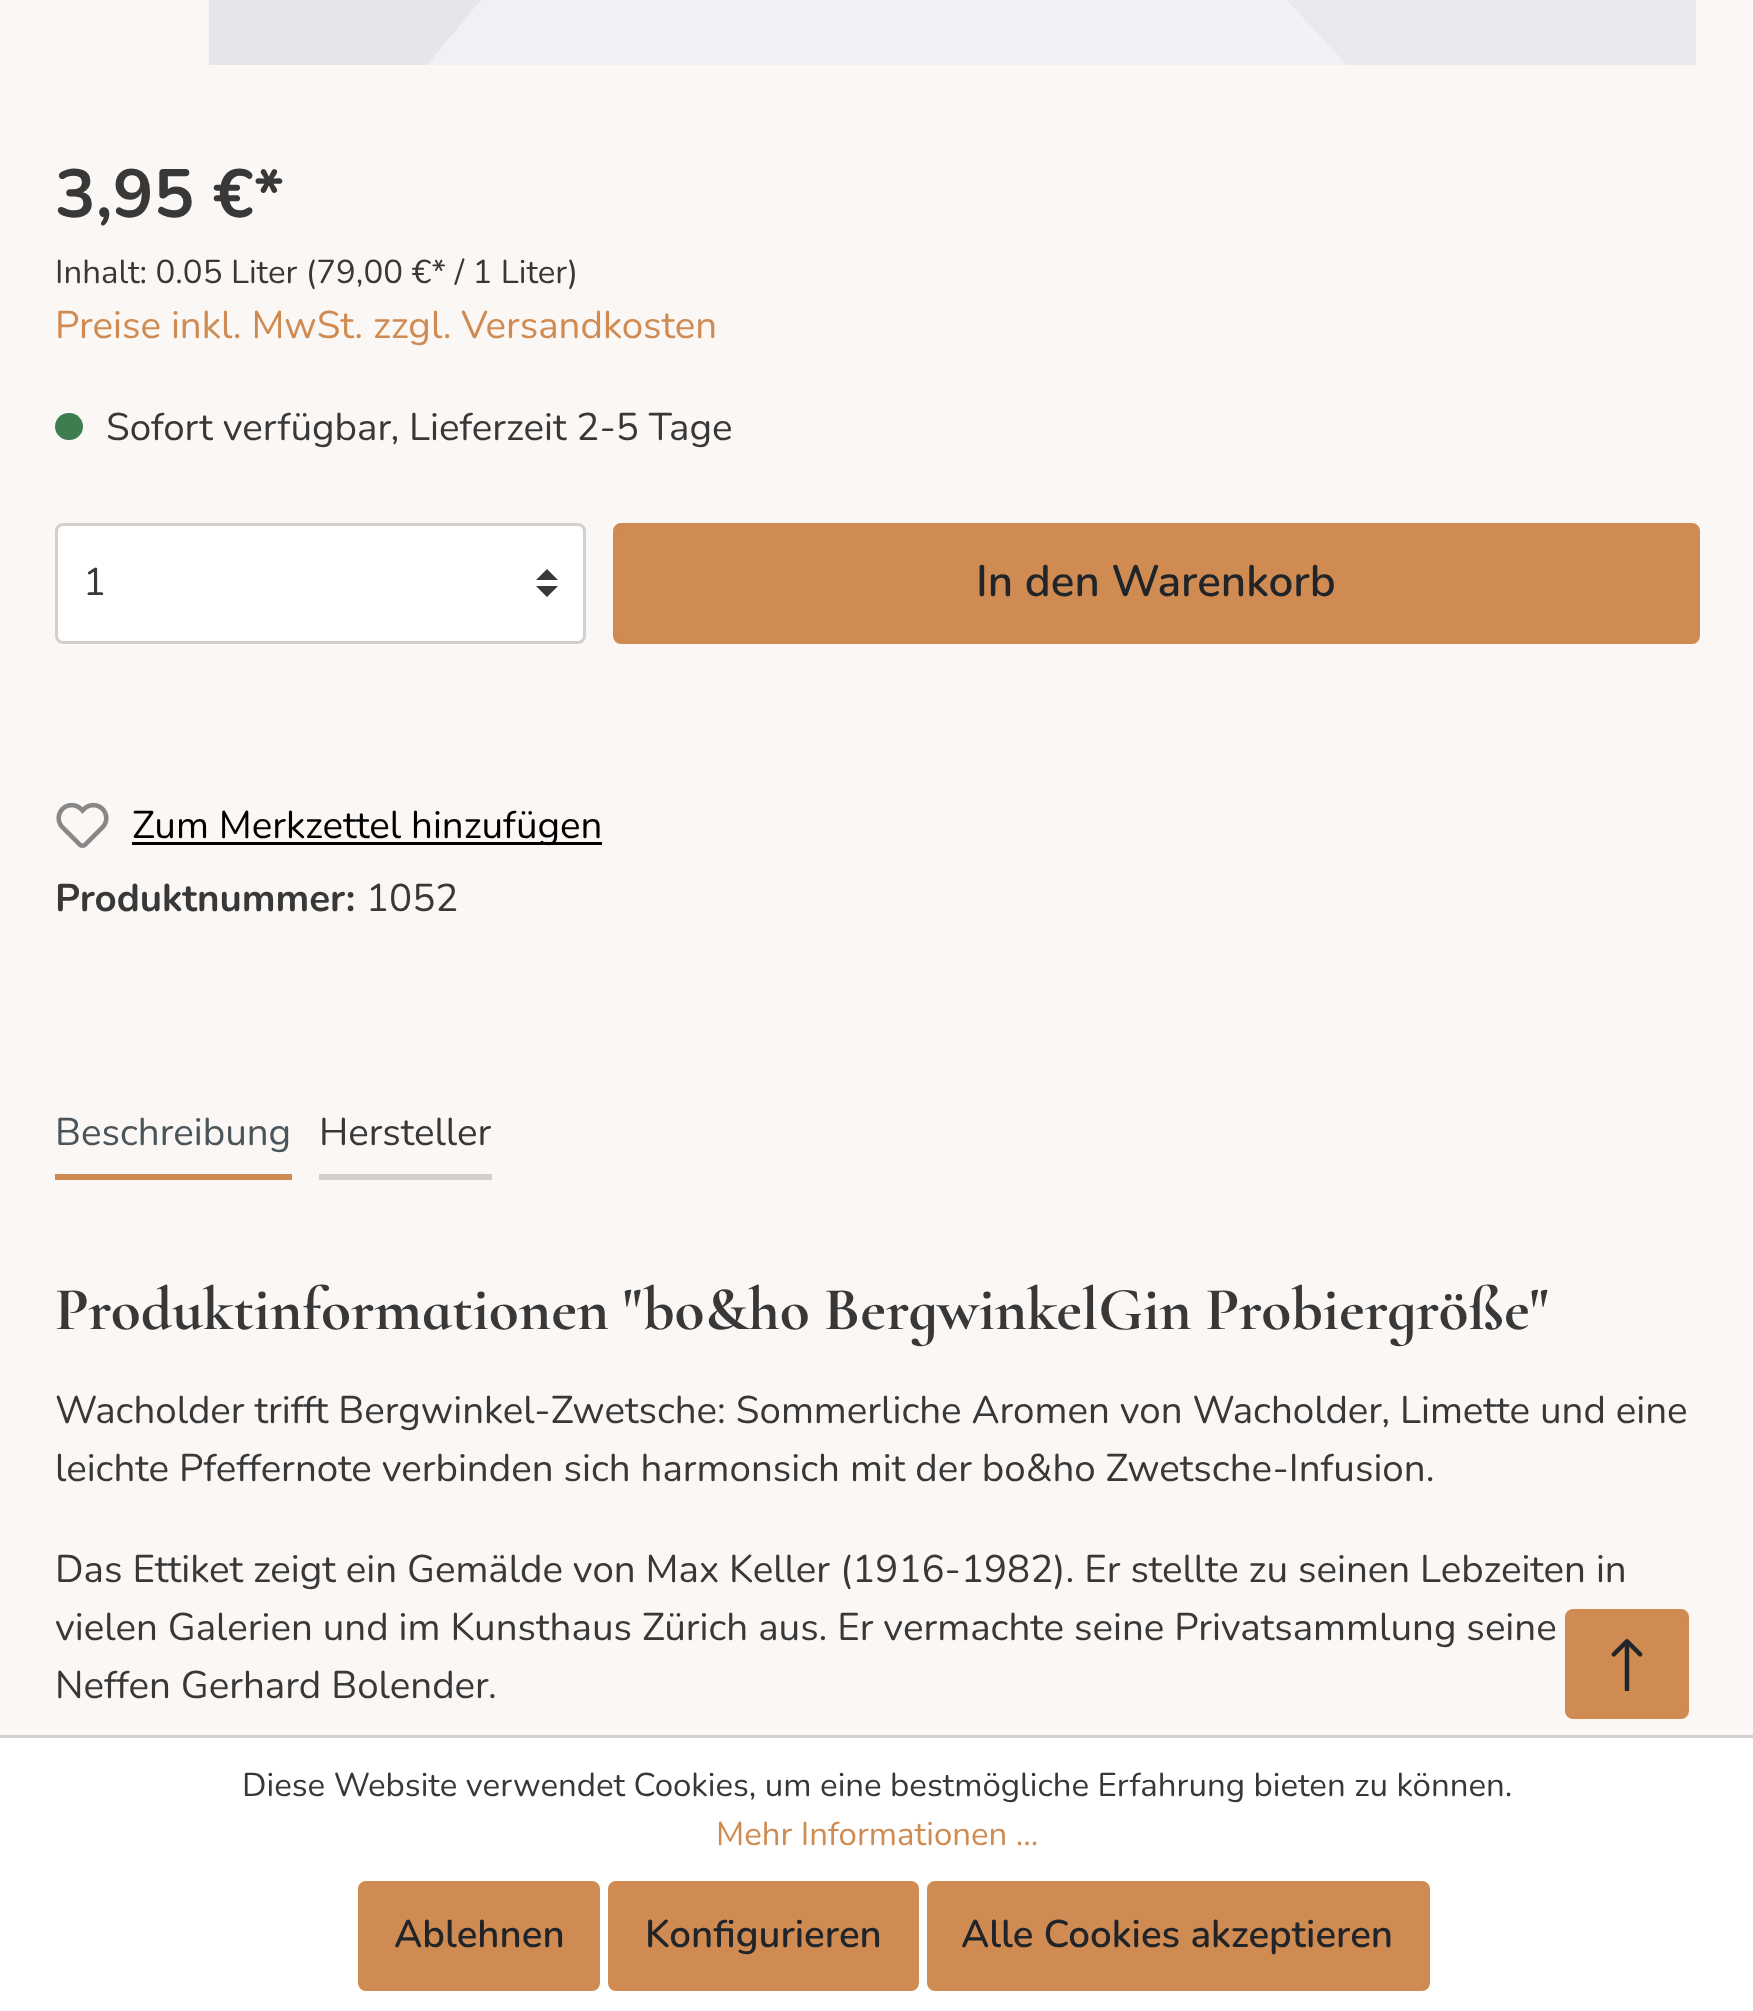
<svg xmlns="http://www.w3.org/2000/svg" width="1753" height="2011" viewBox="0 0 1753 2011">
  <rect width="100%" height="100%" fill="rgb(250,247,245)"/>
  <rect x="209" y="0" width="460" height="65" fill="rgb(229,230,234)"/>
  <path d="M615 65H1696V-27L1166-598Z" fill="rgb(232,233,239)" fill-rule="evenodd"/>
  <path d="M861-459L427 65H1347Z" fill="rgba(245,247,252,0.65)" fill-rule="evenodd"/>
  <text x="55" y="217" font-family="Nunito" font-size="68" font-weight="bold" fill="rgb(56,56,56)">3,95 €*</text>
  <text x="55" y="283" font-family="Nunito" font-size="33" fill="rgb(56,56,56)">Inhalt: 0.05 Liter (79,00 €* / 1 Liter)</text>
  <text x="55" y="338" font-family="Nunito" font-size="38.5" fill="rgb(207,139,81)">Preise inkl. MwSt. zzgl. Versandkosten</text>
  <rect x="55" y="413" width="28" height="27" rx="13.5" fill="rgb(62,125,80)"/>
  <text x="106" y="440" font-family="Nunito" font-size="38.5" fill="rgb(56,56,56)">Sofort verfügbar, Lieferzeit 2-5 Tage</text>
  <rect x="55" y="523" width="531" height="121" rx="8" fill="rgb(255,255,255)"/>
  <path d="M547 569L536 580H558ZM547 597L536 586H558Z" fill="rgb(56,56,56)"/>
  <rect x="56.5" y="524.5" width="528" height="118" rx="6.5" fill="none" stroke="rgb(210,207,206)" stroke-width="3"/>
  <text x="83" y="595" font-family="Nunito" font-size="38.5" fill="rgb(56,56,56)">1</text>
  <rect x="614.5" y="524.5" width="1084" height="118" rx="6.5" fill="rgb(207,139,81)" stroke="rgb(207,139,81)" stroke-width="3"/>
  <text x="976" y="596" font-family="Nunito" font-size="44" font-weight="600" fill="rgb(33,37,41)">In den Warenkorb</text>
  <image x="56" y="802" width="53" height="46" href="pic1.png"/>
  <rect x="132" y="842" width="470" height="3" fill="rgb(0,0,0)"/>
  <text x="132" y="838" font-family="Nunito" font-size="38.5" fill="rgb(0,0,0)">Zum Merkzettel hinzufügen</text>
  <text x="55" y="911" font-family="Nunito" font-size="38.5" font-weight="bold" fill="rgb(56,56,56)">Produktnummer:</text>
  <text x="366" y="911" font-family="Nunito" font-size="38.5" fill="rgb(56,56,56)">1052</text>
  <rect x="55" y="1174" width="237" height="6" fill="rgb(207,139,81)"/>
  <text x="55" y="1145" font-family="Nunito" font-size="38.5" fill="rgb(74,84,91)">Beschreibung</text>
  <rect x="319" y="1174" width="173" height="6" fill="rgb(210,207,206)"/>
  <text x="319" y="1145" font-family="Nunito" font-size="38.5" fill="rgb(56,56,56)">Hersteller</text>
  <text x="55" y="1329" word-spacing="-0.5" font-family="Cormorant Infant" font-size="61.4" font-weight="bold" fill="rgb(56,56,56)">Produktinformationen "bo&amp;ho BergwinkelGin Probiergröße"</text>
  <g font-family="Nunito" font-size="38.5" fill="rgb(56,56,56)">
    <text>
      <tspan x="55" y="1423">Wacholder trifft Bergwinkel-Zwetsche: Sommerliche Aromen von Wacholder, Limette und eine</tspan>
      <tspan x="55" y="1481">leichte Pfeffernote verbinden sich harmonsich mit der bo&amp;ho Zwetsche-Infusion.</tspan>
    </text>
    <text>
      <tspan x="55" y="1582">Das Ettiket zeigt ein Gemälde von Max Keller (1916-1982). Er stellte zu seinen Lebzeiten in</tspan>
      <tspan x="55" y="1640">vielen Galerien und im Kunsthaus Zürich aus. Er vermachte seine Privatsammlung seine</tspan>
      <tspan x="55" y="1698">Neffen Gerhard Bolender.</tspan>
    </text>
  </g>
  <rect x="1566.5" y="1610.5" width="121" height="107" rx="6.5" fill="rgb(207,139,81)" stroke="rgb(207,139,81)" stroke-width="3"/>
  <image x="1611" y="1639" width="32" height="52" href="pic2.png"/>
  <rect x="0" y="1738" width="1753" height="273" fill="rgb(255,255,255)"/>
  <rect x="0" y="1735" width="1753" height="3" fill="rgb(210,207,206)"/>
  <text x="242" y="1796" font-family="Nunito" font-size="33" fill="rgb(56,56,56)">Diese Website verwendet Cookies, um eine bestmögliche Erfahrung bieten zu können.</text>
  <text x="716" y="1845" font-family="Nunito" font-size="33" fill="rgb(207,139,81)">Mehr Informationen ...</text>
  <rect x="359.5" y="1882.5" width="239" height="107" rx="6.5" fill="rgb(207,139,81)" stroke="rgb(207,139,81)" stroke-width="3"/>
  <text x="394" y="1947" font-family="Nunito" font-size="38.5" font-weight="600" fill="rgb(33,37,41)">Ablehnen</text>
  <rect x="609.5" y="1882.5" width="308" height="107" rx="6.5" fill="rgb(207,139,81)" stroke="rgb(207,139,81)" stroke-width="3"/>
  <text x="645" y="1947" font-family="Nunito" font-size="38.5" font-weight="600" fill="rgb(33,37,41)">Konfigurieren</text>
  <rect x="928.5" y="1882.5" width="500" height="107" rx="6.5" fill="rgb(207,139,81)" stroke="rgb(207,139,81)" stroke-width="3"/>
  <text x="961" y="1947" font-family="Nunito" font-size="38.5" font-weight="600" fill="rgb(33,37,41)">Alle Cookies akzeptieren</text>
</svg>
